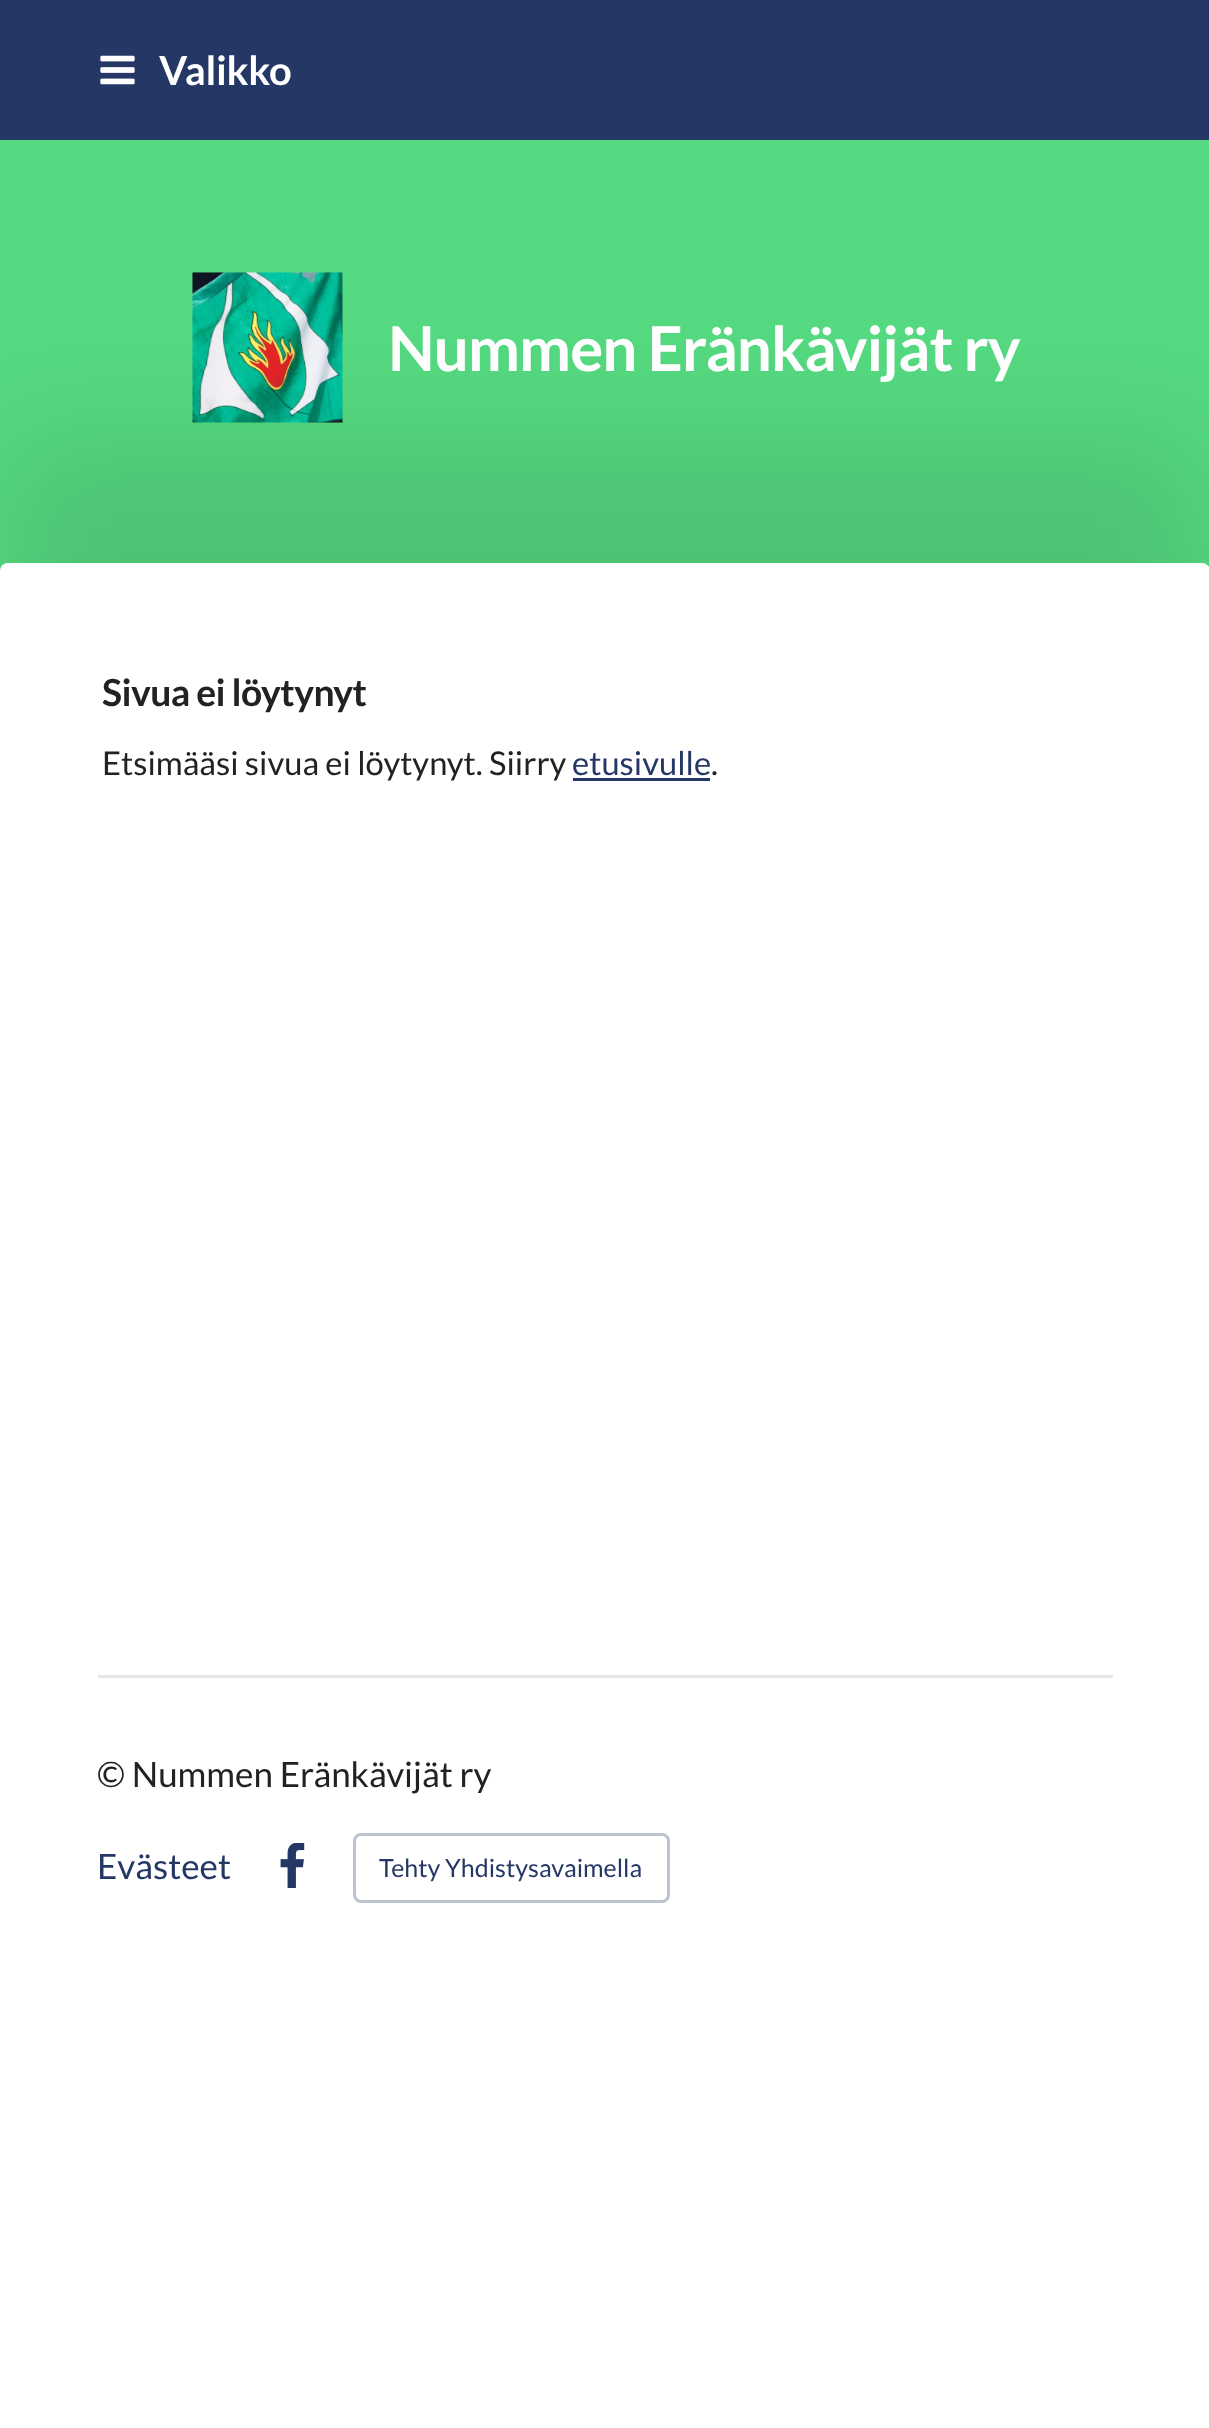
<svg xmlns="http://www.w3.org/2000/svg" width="1209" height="2428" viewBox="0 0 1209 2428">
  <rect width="100%" height="100%" fill="rgb(255,255,255)"/>
  <rect x="0" y="0" width="1209" height="140" fill="rgb(37,55,101)"/>
  <image x="100" y="55" width="35" height="30" href="pic1.png"/>
  <text x="159" y="85" font-family="Lato" font-size="40" font-weight="bold" letter-spacing="-0.25" fill="rgb(255,255,255)">Valikko</text>
  <rect x="0" y="140" width="1209" height="431" fill="rgb(85,218,129)"/>
  <rect x="0" y="438" width="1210" height="1000" rx="8" fill="rgba(0,0,0,0.1)" filter="blur(62.5px)"/>
  <image x="192" y="272" width="151" height="151" href="pic2.png"/>
  <text x="388" y="371" font-family="Lato" font-size="61.75" font-weight="bold" letter-spacing="-0.9" fill="rgb(255,255,255)">Nummen Eränkävijät ry</text>
  <rect x="0" y="563" width="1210" height="1000" rx="8" fill="rgb(255,255,255)"/>
  <text x="102" y="706" font-family="Lato" font-size="37.25" font-weight="bold" letter-spacing="-0.6" fill="rgb(34,34,34)">Sivua ei löytynyt</text>
  <text x="102" y="775" font-family="Lato" font-size="32.75" fill="rgb(34,34,34)">Etsimääsi sivua ei löytynyt. Siirry</text>
  <text x="572" y="775" font-family="Lato" font-size="32.75" fill="rgb(37,55,101)">etusivulle</text>
  <rect x="573" y="778" width="137" height="3" fill="rgb(37,55,101)"/>
  <text x="711" y="775" font-family="Lato" font-size="32.75" fill="rgb(34,34,34)">.</text>
  <rect x="98" y="1675" width="1015" height="3" fill="rgb(230,230,230)"/>
  <text x="97" y="1787" font-family="Lato" font-size="35" fill="rgb(34,34,34)">© Nummen Eränkävijät ry</text>
  <text x="97" y="1879" font-family="Lato" font-size="35" fill="rgb(37,55,101)">Evästeet</text>
  <image x="280" y="1843" width="25" height="45" href="pic3.png"/>
  <rect x="354.5" y="1834.5" width="314" height="67" rx="6.5" fill="none" stroke="rgb(190,195,209)" stroke-width="3"/>
  <text x="379" y="1877" font-family="Lato" font-size="25" fill="rgb(37,55,101)">Tehty Yhdistysavaimella</text>
</svg>
